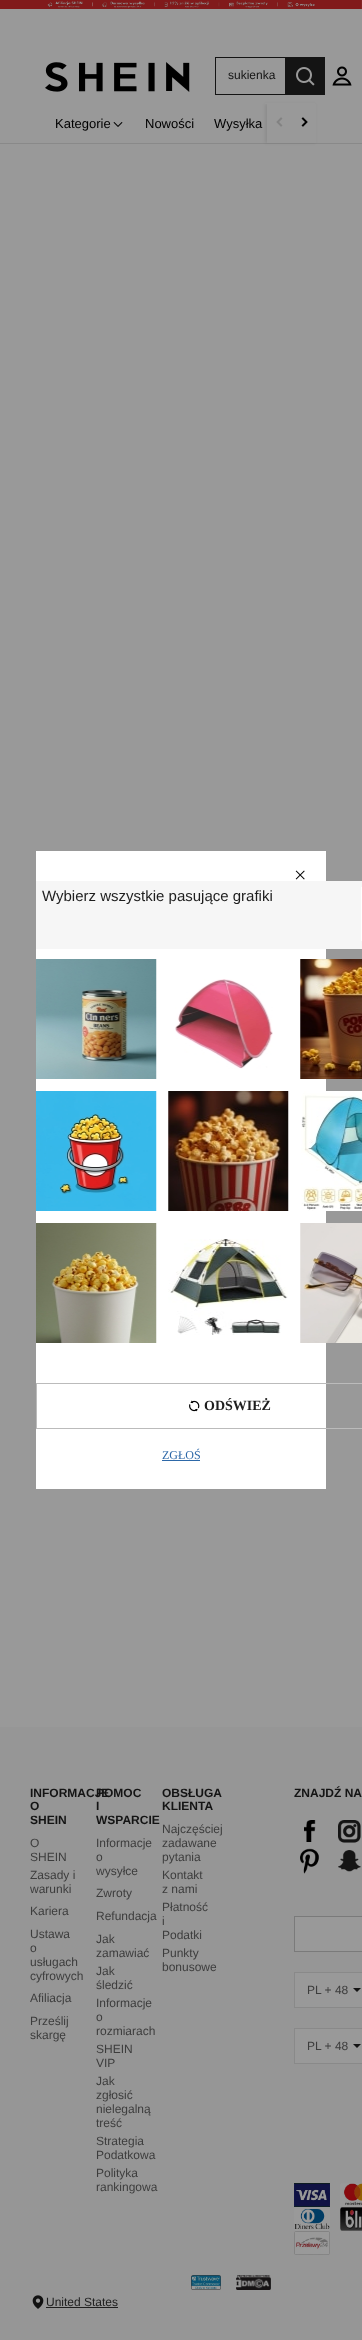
<svg xmlns="http://www.w3.org/2000/svg" width="362" height="2340" viewBox="0 0 362 2340">
  <rect width="100%" height="100%" fill="rgb(153,153,153)"/>
  <image x="0" y="0" width="362" height="9" href="pic1.png"/>
  <rect x="0" y="143" width="362" height="1" fill="rgb(137,137,137)"/>
  <rect x="265" y="104" width="50" height="39" fill="rgba(0,0,0,0.08)" filter="blur(1.5px)"/>
  <rect x="265" y="103" width="50" height="1" fill="rgb(153,153,153)"/>
  <image x="45" y="62" width="145" height="30" href="pic2.png"/>
  <rect x="215" y="57" width="70" height="1" fill="rgb(20,20,20)"/>
  <rect x="215" y="94" width="70" height="1" fill="rgb(20,20,20)"/>
  <rect x="215" y="57" width="1" height="38" fill="rgb(20,20,20)"/>
  <text x="228" y="79" font-family="Liberation Sans" font-size="12" fill="rgb(20,20,20)">sukienka</text>
  <rect x="285" y="57" width="40" height="38" fill="rgb(20,20,20)"/>
  <image x="296" y="67" width="19" height="19" href="pic3.png"/>
  <image x="332" y="66" width="20" height="20" href="pic4.png"/>
  <text x="55" y="128" font-family="Liberation Sans" font-size="13" fill="rgb(0,0,0)">Kategorie</text>
  <image x="113" y="122" width="10" height="5" href="pic5.png"/>
  <g font-family="Liberation Sans" font-size="13" fill="rgb(0,0,0)">
    <text x="145" y="128">Nowości</text>
    <text x="214" y="128">Wysyłka</text>
  </g>
  <rect x="267" y="104" width="49" height="39" fill="rgb(153,153,153)"/>
  <image x="276" y="117" width="7" height="10" href="pic6.png"/>
  <image x="301" y="117" width="7" height="10" href="pic7.png"/>
  <rect x="0" y="1727" width="362" height="613" fill="rgb(150,150,150)"/>
  <g font-family="Liberation Sans" font-size="12" font-weight="bold" fill="rgb(20,20,20)">
    <text>
      <tspan x="30" y="1797">INFORMACJE</tspan>
      <tspan x="30" y="1810">O</tspan>
      <tspan x="30" y="1824">SHEIN</tspan>
    </text>
  </g>
  <g font-family="Liberation Sans" font-size="12" fill="rgb(61,61,61)">
    <text>
      <tspan x="30" y="1847">O</tspan>
      <tspan x="30" y="1861">SHEIN</tspan>
      <tspan x="30" y="1879">Zasady i</tspan>
      <tspan x="30" y="1893">warunki</tspan>
      <tspan x="30" y="1915">Kariera</tspan>
      <tspan x="30" y="1938">Ustawa</tspan>
      <tspan x="30" y="1952">o</tspan>
      <tspan x="30" y="1966">usługach</tspan>
      <tspan x="30" y="1980">cyfrowych</tspan>
      <tspan x="30" y="2002">Afiliacja</tspan>
      <tspan x="30" y="2025">Prześlij</tspan>
      <tspan x="30" y="2039">skargę</tspan>
    </text>
  </g>
  <g font-family="Liberation Sans" font-size="12" font-weight="bold" fill="rgb(20,20,20)">
    <text>
      <tspan x="96" y="1797">POMOC</tspan>
      <tspan x="96" y="1810">I</tspan>
      <tspan x="96" y="1824">WSPARCIE</tspan>
    </text>
  </g>
  <g font-family="Liberation Sans" font-size="12" fill="rgb(61,61,61)">
    <text>
      <tspan x="96" y="1847">Informacje</tspan>
      <tspan x="96" y="1861">o</tspan>
      <tspan x="96" y="1875">wysyłce</tspan>
      <tspan x="96" y="1897">Zwroty</tspan>
      <tspan x="96" y="1920">Refundacja</tspan>
      <tspan x="96" y="1943">Jak</tspan>
      <tspan x="96" y="1957">zamawiać</tspan>
      <tspan x="96" y="1975">Jak</tspan>
      <tspan x="96" y="1989">śledzić</tspan>
      <tspan x="96" y="2007">Informacje</tspan>
      <tspan x="96" y="2021">o</tspan>
      <tspan x="96" y="2035">rozmiarach</tspan>
      <tspan x="96" y="2053">SHEIN</tspan>
      <tspan x="96" y="2067">VIP</tspan>
      <tspan x="96" y="2085">Jak</tspan>
      <tspan x="96" y="2099">zgłosić</tspan>
      <tspan x="96" y="2113">nielegalną</tspan>
      <tspan x="96" y="2127">treść</tspan>
      <tspan x="96" y="2145">Strategia</tspan>
      <tspan x="96" y="2159">Podatkowa</tspan>
      <tspan x="96" y="2177">Polityka</tspan>
      <tspan x="96" y="2191">rankingowa</tspan>
    </text>
  </g>
  <g font-family="Liberation Sans" font-size="12" font-weight="bold" fill="rgb(20,20,20)">
    <text>
      <tspan x="162" y="1797">OBSŁUGA</tspan>
      <tspan x="162" y="1810">KLIENTA</tspan>
    </text>
  </g>
  <g font-family="Liberation Sans" font-size="12" fill="rgb(61,61,61)">
    <text>
      <tspan x="162" y="1833">Najczęściej</tspan>
      <tspan x="162" y="1847">zadawane</tspan>
      <tspan x="162" y="1861">pytania</tspan>
      <tspan x="162" y="1879">Kontakt</tspan>
      <tspan x="162" y="1893">z nami</tspan>
      <tspan x="162" y="1911">Płatność</tspan>
      <tspan x="162" y="1925">i</tspan>
      <tspan x="162" y="1939">Podatki</tspan>
      <tspan x="162" y="1957">Punkty</tspan>
      <tspan x="162" y="1971">bonusowe</tspan>
    </text>
  </g>
  <text x="294" y="1797" font-family="Liberation Sans" font-size="12" font-weight="bold" fill="rgb(20,20,20)">ZNAJDŹ NA</text>
  <image x="304" y="1820" width="12" height="22" href="pic8.png"/>
  <image x="338" y="1820" width="23" height="23" href="pic9.png"/>
  <image x="300" y="1848" width="20" height="26" href="pic10.png"/>
  <image x="338" y="1850" width="23" height="22" href="pic11.png"/>
  <rect x="294.5" y="1916.5" width="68" height="35" fill="rgb(153,153,153)" stroke="rgb(122,122,122)"/>
  <rect x="295" y="1973" width="67" height="34" fill="rgb(153,153,153)"/>
  <rect x="294" y="1972" width="68" height="1" fill="rgb(137,137,137)"/>
  <rect x="294" y="2007" width="68" height="1" fill="rgb(137,137,137)"/>
  <rect x="294" y="1972" width="1" height="36" fill="rgb(137,137,137)"/>
  <text x="307" y="1994" font-family="Liberation Sans" font-size="12" fill="rgb(61,61,61)">PL + 48</text>
  <path d="M353 1988H361L357 1992Z" fill="rgb(20,20,20)"/>
  <rect x="295" y="2029" width="67" height="34" fill="rgb(153,153,153)"/>
  <rect x="294" y="2028" width="68" height="1" fill="rgb(137,137,137)"/>
  <rect x="294" y="2063" width="68" height="1" fill="rgb(137,137,137)"/>
  <rect x="294" y="2028" width="1" height="36" fill="rgb(137,137,137)"/>
  <text x="307" y="2050" font-family="Liberation Sans" font-size="12" fill="rgb(61,61,61)">PL + 48</text>
  <path d="M353 2044H361L357 2048Z" fill="rgb(20,20,20)"/>
  <image x="294" y="2183" width="36" height="24" href="pic12.png"/>
  <image x="340" y="2183" width="22" height="24" href="pic13.png"/>
  <image x="294" y="2207" width="36" height="24" href="pic14.png"/>
  <image x="340" y="2207" width="22" height="24" href="pic15.png"/>
  <image x="294" y="2231" width="36" height="24" href="pic16.png"/>
  <image x="191" y="2275" width="30" height="15" href="pic17.png"/>
  <image x="236" y="2275" width="35" height="15" href="pic18.png"/>
  <image x="32" y="2295" width="12" height="14" href="pic19.png"/>
  <text x="46" y="2306" font-family="Liberation Sans" font-size="12" fill="rgb(30,30,30)">United States</text>
  <rect x="46" y="2307" width="72" height="1" fill="rgb(30,30,30)"/>
  <rect x="36" y="851" width="290" height="638" fill="rgba(0,0,0,0.3)" filter="blur(0.5px)"/>
  <rect x="36" y="851" width="290" height="638" fill="rgb(255,255,255)"/>
  <image x="295" y="870" width="10" height="10" href="pic20.png"/>
  <rect x="36" y="881" width="326" height="68" fill="rgb(246,246,246)"/>
  <text x="42" y="901" font-family="Liberation Sans" font-size="15" fill="rgb(30,30,30)">Wybierz wszystkie pasujące grafiki</text>
  <rect x="361" y="887" width="1" height="54" fill="rgb(255,255,255)"/>
  <image x="36" y="959" width="121" height="120" href="pic21.png"/>
  <image x="175" y="979" width="98" height="90" href="pic22.png"/>
  <image x="300" y="959" width="62" height="120" href="pic23.png"/>
  <image x="36" y="1091" width="121" height="120" href="pic24.png"/>
  <image x="168" y="1091" width="121" height="120" href="pic25.png"/>
  <image x="301" y="1091" width="61" height="120" href="pic26.png"/>
  <image x="36" y="1223" width="121" height="120" href="pic27.png"/>
  <image x="168" y="1239" width="120" height="96" href="pic28.png"/>
  <image x="300" y="1223" width="62" height="120" href="pic29.png"/>
  <rect x="36.5" y="1383.5" width="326" height="45" fill="none" stroke="rgb(187,187,187)"/>
  <image x="189" y="1400" width="11" height="12" href="pic30.png"/>
  <text x="204" y="1410" font-family="Liberation Serif" font-size="14" font-weight="bold" fill="rgb(30,30,30)">ODŚWIEŻ</text>
  <text x="162" y="1459" font-family="Liberation Serif" font-size="12" fill="rgb(45,104,168)">ZGŁOŚ</text>
  <rect x="162" y="1460" width="38" height="1" fill="rgb(45,104,168)"/>
</svg>
